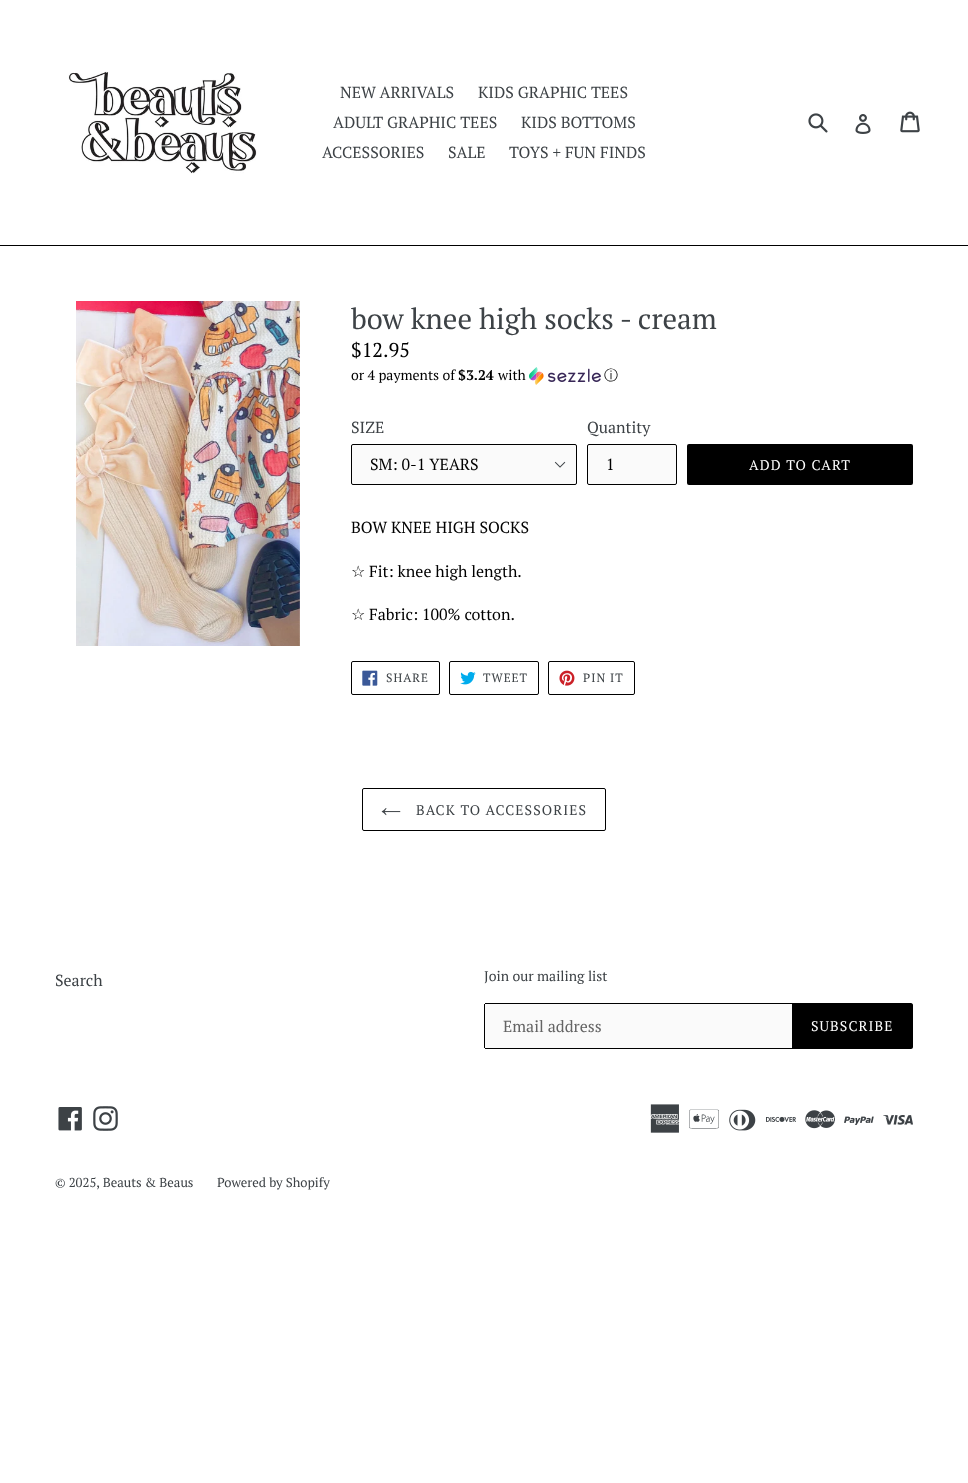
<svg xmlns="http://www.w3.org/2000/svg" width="968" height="1483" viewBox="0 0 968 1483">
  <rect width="100%" height="100%" fill="rgb(255,255,255)"/>
  <rect x="0" y="245" width="968" height="1" fill="rgb(0,0,0)"/>
  <image x="68" y="71" width="189" height="103" href="pic1.png"/>
  <g font-family="PT Serif" font-size="16" fill="rgb(61,66,70)">
    <text x="340" y="98">NEW ARRIVALS</text>
    <text x="478" y="98">KIDS GRAPHIC TEES</text>
    <text x="333" y="128">ADULT GRAPHIC TEES</text>
    <text x="521" y="128">KIDS BOTTOMS</text>
    <text x="322" y="158">ACCESSORIES</text>
    <text x="448" y="158">SALE</text>
    <text x="509" y="158">TOYS + FUN FINDS</text>
  </g>
  <image x="808" y="113" width="20" height="20" href="pic2.png"/>
  <image x="855" y="114" width="16" height="20" href="pic3.png"/>
  <image x="900" y="111" width="20" height="22" href="pic4.png"/>
  <image x="76" y="301" width="224" height="345" href="pic5.png"/>
  <text x="351" y="329" font-family="PT Serif" font-size="29" fill="rgb(61,66,70)">bow knee high socks - cream</text>
  <text x="351" y="357" font-family="PT Serif" font-size="20" fill="rgb(0,0,0)">$12.95</text>
  <text x="351" y="380" font-family="PT Serif" font-size="14" fill="rgb(0,0,0)">or 4 payments of</text>
  <text x="458" y="380" font-family="PT Serif" font-size="14" font-weight="bold" fill="rgb(0,0,0)">$3.24</text>
  <text x="498" y="380" font-family="PT Serif" font-size="14" fill="rgb(0,0,0)">with</text>
  <image x="529" y="367" width="72" height="18" href="pic6.png"/>
  <text x="604" y="380" font-family="WenQuanYi Zen Hei" font-size="14" font-weight="500" fill="rgb(0,0,0)">ⓘ</text>
  <text x="351" y="433" font-family="PT Serif" font-size="16" fill="rgb(61,66,70)">SIZE</text>
  <rect x="351" y="444" width="226" height="41" rx="2" fill="rgb(250,250,250)"/>
  <image x="554" y="461" width="12" height="7" href="pic7.png"/>
  <rect x="351.5" y="444.5" width="225" height="40" rx="1.5" fill="none" stroke="rgb(0,0,0)"/>
  <text x="370" y="470" font-family="PT Serif" font-size="16" fill="rgb(0,0,0)">SM: 0-1 YEARS</text>
  <text x="587" y="433" font-family="PT Serif" font-size="16" fill="rgb(61,66,70)">Quantity</text>
  <rect x="587.5" y="444.5" width="89" height="40" rx="1.5" fill="rgb(250,250,250)" stroke="rgb(0,0,0)"/>
  <text x="606" y="470" font-family="PT Serif" font-size="16" fill="rgb(0,0,0)">1</text>
  <rect x="687" y="444" width="226" height="41" rx="2" fill="rgb(0,0,0)"/>
  <text x="749" y="470" font-family="PT Serif" font-size="14" letter-spacing="1.1" fill="rgb(255,255,255)">ADD TO CART</text>
  <text x="351" y="533" font-family="PT Serif" font-size="16" fill="rgb(0,0,0)">BOW KNEE HIGH SOCKS</text>
  <text x="351" y="577" font-family="DejaVu Sans" font-size="16" fill="rgb(0,0,0)">☆</text>
  <text x="369" y="577" font-family="PT Serif" font-size="16" fill="rgb(0,0,0)">Fit: knee high length.</text>
  <text x="351" y="620" font-family="DejaVu Sans" font-size="16" fill="rgb(0,0,0)">☆</text>
  <text x="369" y="620" font-family="PT Serif" font-size="16" fill="rgb(0,0,0)">Fabric: 100% cotton.</text>
  <rect x="351.5" y="661.5" width="88" height="33" rx="1.5" fill="none" stroke="rgb(0,0,0)"/>
  <image x="362" y="670" width="16" height="16" href="pic8.png"/>
  <text x="386" y="682" font-family="PT Serif" font-size="12" letter-spacing="1" fill="rgb(61,66,70)">SHARE</text>
  <rect x="449.5" y="661.5" width="89" height="33" rx="1.5" fill="none" stroke="rgb(0,0,0)"/>
  <image x="460" y="671" width="16" height="14" href="pic9.png"/>
  <text x="483" y="682" font-family="PT Serif" font-size="12" letter-spacing="1" fill="rgb(61,66,70)">TWEET</text>
  <rect x="548.5" y="661.5" width="86" height="33" rx="1.5" fill="none" stroke="rgb(0,0,0)"/>
  <image x="559" y="670" width="16" height="16" href="pic10.png"/>
  <text x="583" y="682" font-family="PT Serif" font-size="12" letter-spacing="1" fill="rgb(61,66,70)">PIN IT</text>
  <rect x="362.5" y="788.5" width="243" height="42" rx="1.5" fill="none" stroke="rgb(0,0,0)"/>
  <image x="381" y="808" width="20" height="8" href="pic11.png"/>
  <text x="416" y="815" font-family="PT Serif" font-size="14" letter-spacing="1.1" fill="rgb(61,66,70)">BACK TO ACCESSORIES</text>
  <text x="55" y="986" font-family="PT Serif" font-size="16" fill="rgb(61,66,70)">Search</text>
  <text x="484" y="981" font-family="PT Serif" font-size="14" fill="rgb(61,66,70)">Join our mailing list</text>
  <path d="M486 1003H792V1049H486C485 1049 484 1048 484 1047V1005C484 1004 485 1003 486 1003Z" fill="rgb(250,250,250)"/>
  <rect x="485" y="1003" width="307" height="1" fill="rgb(0,0,0)"/>
  <rect x="485" y="1048" width="307" height="1" fill="rgb(0,0,0)"/>
  <rect x="484" y="1004" width="1" height="44" fill="rgb(0,0,0)"/>
  <text x="503" y="1032" font-family="PT Serif" font-size="16" fill="rgb(100,100,100)">Email address</text>
  <path d="M792 1003H911C912 1003 913 1004 913 1005V1047C913 1048 912 1049 911 1049H792Z" fill="rgb(0,0,0)"/>
  <text x="811" y="1031" font-family="PT Serif" font-size="14" letter-spacing="1.1" fill="rgb(255,255,255)">SUBSCRIBE</text>
  <image x="58" y="1107" width="24" height="24" href="pic12.png"/>
  <image x="93" y="1106" width="25" height="25" href="pic13.png"/>
  <image x="650" y="1104" width="30" height="29" href="pic14.png"/>
  <image x="689" y="1109" width="30" height="20" href="pic15.png"/>
  <image x="729" y="1109" width="27" height="22" href="pic16.png"/>
  <image x="766" y="1116" width="30" height="6" href="pic17.png"/>
  <image x="805" y="1110" width="30" height="19" href="pic18.png"/>
  <image x="844" y="1116" width="30" height="9" href="pic19.png"/>
  <image x="883" y="1115" width="30" height="10" href="pic20.png"/>
  <g font-family="PT Serif" font-size="13" fill="rgb(61,66,70)">
    <text x="55" y="1187">© 2025, Beauts &amp; Beaus</text>
    <text x="217" y="1187">Powered by Shopify</text>
  </g>
</svg>
